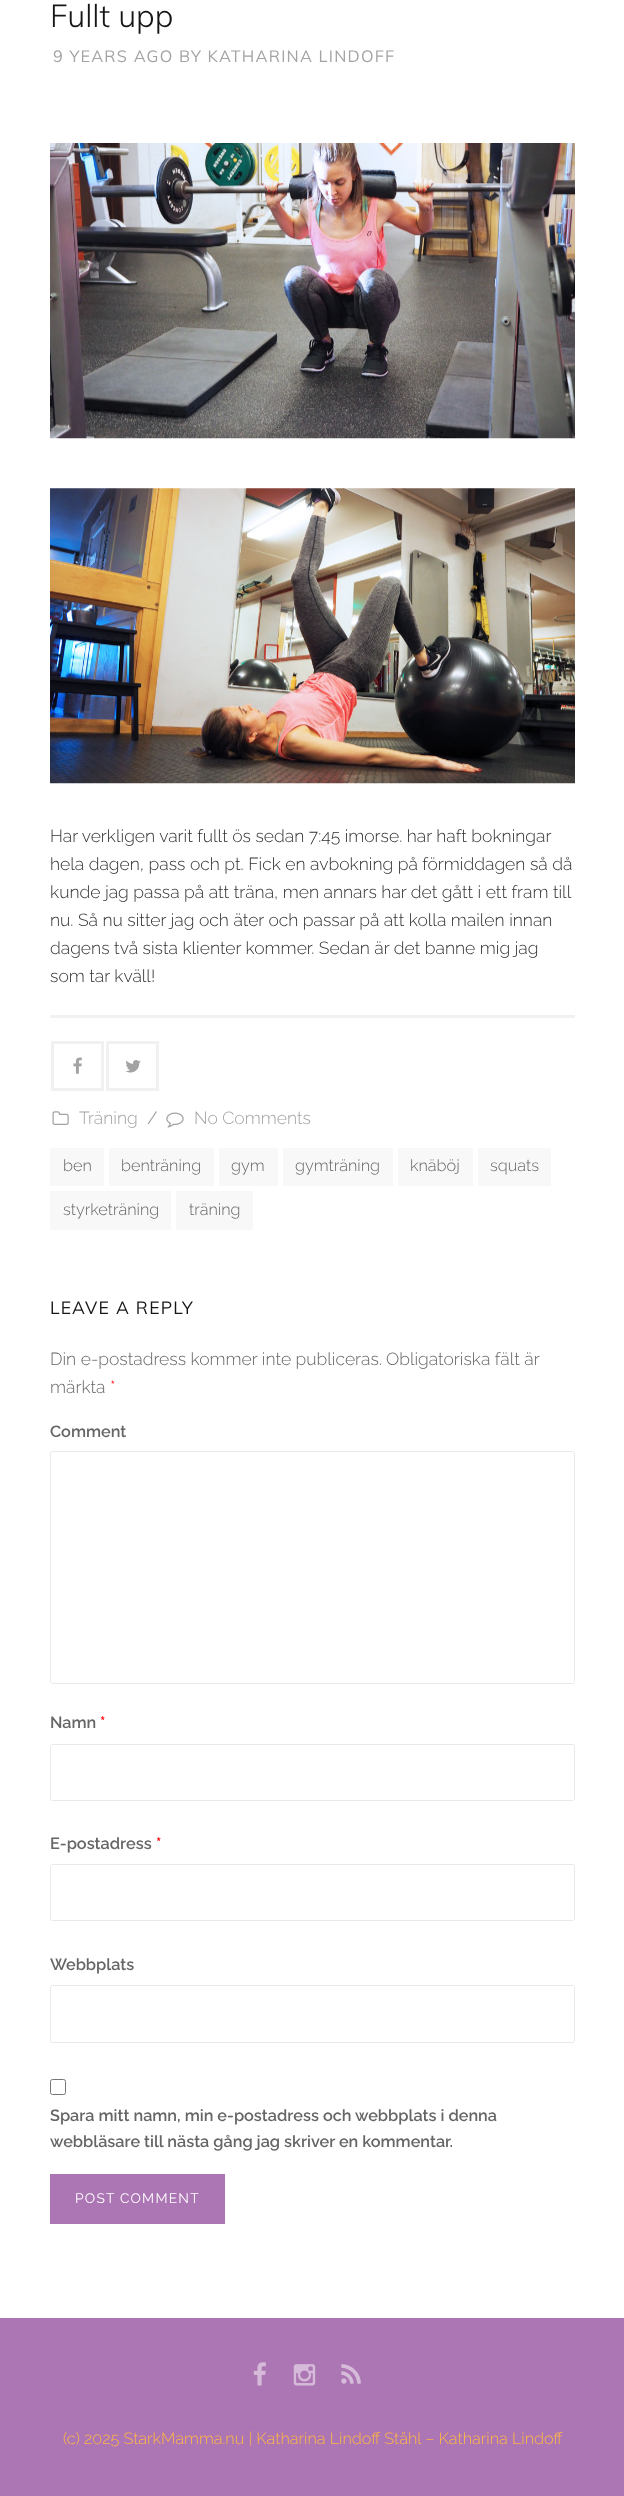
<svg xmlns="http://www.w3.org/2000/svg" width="624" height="2496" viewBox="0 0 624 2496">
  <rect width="100%" height="100%" fill="rgb(255,255,255)"/>
  <text x="50" y="27" font-family="Muli" font-size="31.5" font-weight="300" fill="rgb(22,22,22)">Fullt upp</text>
  <text x="53" y="62" font-family="Muli" font-size="16.25" letter-spacing="1.25" fill="rgb(163,163,163)">9 YEARS AGO BY KATHARINA LINDOFF</text>
  <image x="50" y="143" width="525" height="296" href="pic1.png"/>
  <image x="50" y="488" width="525" height="296" href="pic2.png"/>
  <g font-family="Raleway" font-size="17.5" font-weight="300" fill="rgb(51,51,51)">
    <text>
      <tspan x="50" y="842">Har verkligen varit fullt ös sedan 7:45 imorse. har haft bokningar</tspan>
      <tspan x="50" y="870">hela dagen, pass och pt. Fick en avbokning på förmiddagen så då</tspan>
      <tspan x="50" y="898">kunde jag passa på att träna, men annars har det gått i ett fram till</tspan>
      <tspan x="50" y="926">nu. Så nu sitter jag och äter och passar på att kolla mailen innan</tspan>
      <tspan x="50" y="954">dagens två sista klienter kommer. Sedan är det banne mig jag</tspan>
      <tspan x="50" y="982">som tar kväll!</tspan>
    </text>
  </g>
  <rect x="50" y="1015" width="525" height="3" fill="rgb(241,241,241)"/>
  <rect x="52.5" y="1042.5" width="50" height="47" fill="none" stroke="rgb(241,241,241)" stroke-width="3"/>
  <image x="73" y="1057" width="9" height="17" href="pic3.png"/>
  <rect x="107.5" y="1042.5" width="50" height="47" fill="none" stroke="rgb(241,241,241)" stroke-width="3"/>
  <image x="125" y="1060" width="16" height="13" href="pic4.png"/>
  <image x="52" y="1111" width="17" height="14" href="pic5.png"/>
  <text x="79" y="1124" font-family="Raleway" font-size="17.5" font-weight="300" fill="rgb(163,163,163)">Träning</text>
  <text x="147" y="1124" font-family="Raleway" font-size="17.5" fill="rgb(163,163,163)">/</text>
  <image x="166" y="1112" width="18" height="16" href="pic6.png"/>
  <text x="194" y="1124" font-family="Raleway" font-size="17.5" font-weight="300" fill="rgb(163,163,163)">No Comments</text>
  <rect x="50" y="1148" width="54" height="38" fill="rgb(248,248,248)"/>
  <text x="63" y="1171" font-family="Raleway" font-size="16.25" font-weight="300" fill="rgb(102,102,102)">ben</text>
  <rect x="109" y="1148" width="105" height="38" fill="rgb(248,248,248)"/>
  <text x="121" y="1171" font-family="Raleway" font-size="16.25" font-weight="300" fill="rgb(102,102,102)">benträning</text>
  <rect x="219" y="1148" width="59" height="38" fill="rgb(248,248,248)"/>
  <text x="231" y="1171" font-family="Raleway" font-size="16.25" font-weight="300" fill="rgb(102,102,102)">gym</text>
  <rect x="283" y="1148" width="110" height="38" fill="rgb(248,248,248)"/>
  <text x="295" y="1171" font-family="Raleway" font-size="16.25" font-weight="300" fill="rgb(102,102,102)">gymträning</text>
  <rect x="398" y="1148" width="75" height="38" fill="rgb(248,248,248)"/>
  <text x="410" y="1171" font-family="Raleway" font-size="16.25" font-weight="300" fill="rgb(102,102,102)">knäböj</text>
  <rect x="478" y="1148" width="73" height="38" fill="rgb(248,248,248)"/>
  <text x="490" y="1171" font-family="Raleway" font-size="16.25" font-weight="300" fill="rgb(102,102,102)">squats</text>
  <rect x="50" y="1191" width="121" height="39" fill="rgb(248,248,248)"/>
  <text x="63" y="1215" font-family="Raleway" font-size="16.25" font-weight="300" fill="rgb(102,102,102)">styrketräning</text>
  <rect x="176" y="1191" width="77" height="39" fill="rgb(248,248,248)"/>
  <text x="189" y="1215" font-family="Raleway" font-size="16.25" font-weight="300" fill="rgb(102,102,102)">träning</text>
  <text x="50" y="1314" font-family="Muli" font-size="17.5" letter-spacing="1.25" fill="rgb(22,22,22)">LEAVE A REPLY</text>
  <g font-family="Raleway" font-size="17.5" font-weight="300" fill="rgb(102,102,102)">
    <text x="50" y="1365">Din e-postadress kommer inte publiceras.</text>
    <text x="386" y="1365">Obligatoriska fält är</text>
    <text x="50" y="1393">märkta</text>
  </g>
  <text x="110" y="1393" font-family="Raleway" font-size="17.5" font-weight="300" fill="rgb(255,0,0)">*</text>
  <text x="50" y="1437" font-family="Raleway" font-size="16.25" font-weight="600" fill="rgb(102,102,102)">Comment</text>
  <rect x="50.5" y="1451.5" width="524" height="232" rx="2" fill="none" stroke="rgb(233,233,233)"/>
  <text x="50" y="1728" font-family="Raleway" font-size="16.25" font-weight="600" fill="rgb(102,102,102)">Namn</text>
  <text x="100" y="1728" font-family="Raleway" font-size="16.25" font-weight="600" fill="rgb(255,0,0)">*</text>
  <rect x="50.5" y="1744.5" width="524" height="56" rx="2" fill="none" stroke="rgb(233,233,233)"/>
  <text x="50" y="1849" font-family="Raleway" font-size="16.25" font-weight="600" fill="rgb(102,102,102)">E-postadress</text>
  <text x="156" y="1849" font-family="Raleway" font-size="16.25" font-weight="600" fill="rgb(255,0,0)">*</text>
  <rect x="50.5" y="1864.5" width="524" height="56" rx="2" fill="none" stroke="rgb(233,233,233)"/>
  <text x="50" y="1970" font-family="Raleway" font-size="16.25" font-weight="600" fill="rgb(102,102,102)">Webbplats</text>
  <rect x="50.5" y="1985.5" width="524" height="57" rx="2" fill="none" stroke="rgb(233,233,233)"/>
  <rect x="50.5" y="2079.5" width="15" height="15" rx="2" fill="none" stroke="rgb(118,118,118)"/>
  <g font-family="Raleway" font-size="16.25" font-weight="600" fill="rgb(102,102,102)">
    <text>
      <tspan x="50" y="2121">Spara mitt namn, min e-postadress och webbplats i denna</tspan>
      <tspan x="50" y="2147">webbläsare till nästa gång jag skriver en kommentar.</tspan>
    </text>
  </g>
  <rect x="50" y="2174" width="175" height="50" fill="rgb(172,117,179)"/>
  <text x="75" y="2203" font-family="Raleway" font-size="13.75" letter-spacing="1.25" fill="rgb(255,255,255)">POST COMMENT</text>
  <rect x="0" y="2318" width="624" height="178" fill="rgb(172,117,179)"/>
  <image x="253" y="2362" width="13" height="24" href="pic7.png"/>
  <image x="293" y="2364" width="23" height="22" href="pic8.png"/>
  <image x="341" y="2364" width="20" height="20" href="pic9.png"/>
  <text x="63" y="2444" font-family="Raleway" font-size="16.25" font-weight="300" fill="rgb(255,184,70)">(c) 2025 StarkMamma.nu | Katharina Lindoff Ståhl – Katharina Lindoff</text>
</svg>
